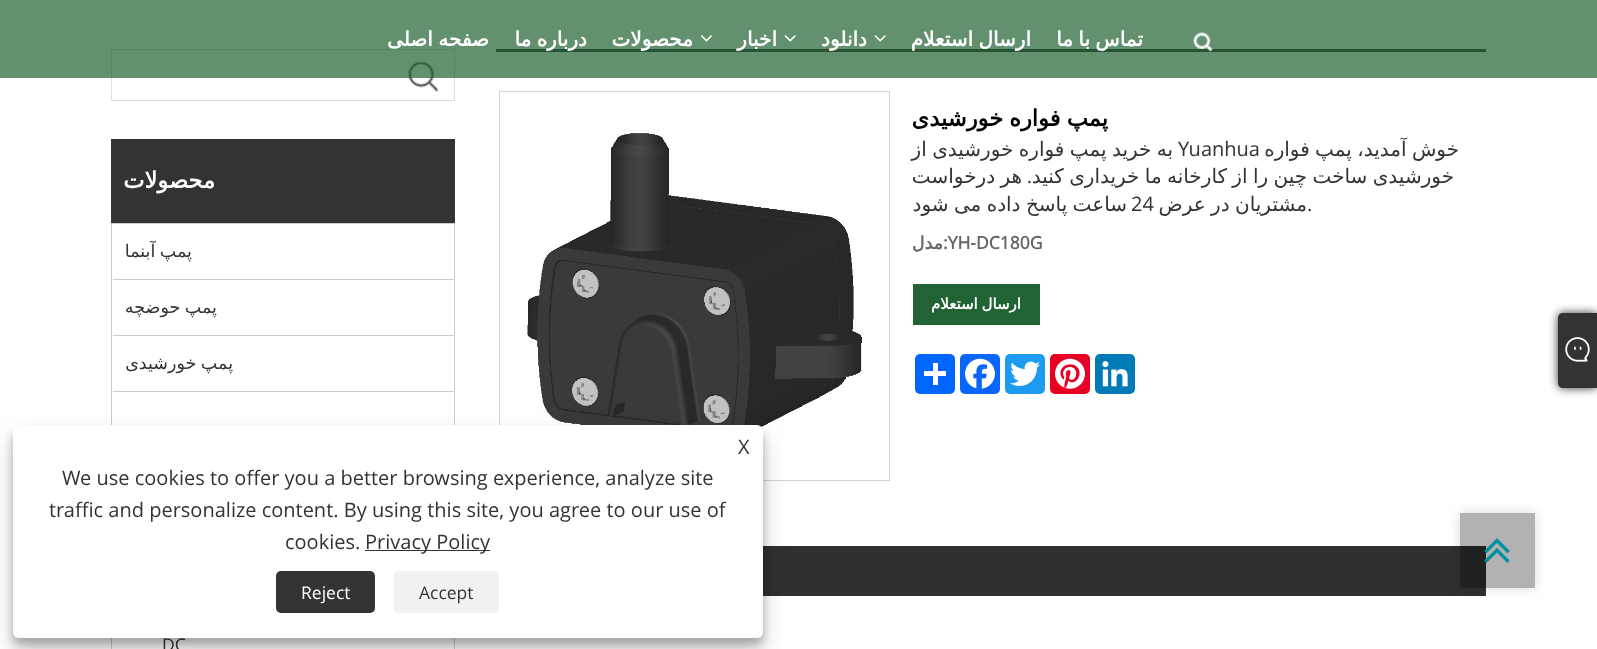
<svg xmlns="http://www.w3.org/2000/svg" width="1597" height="649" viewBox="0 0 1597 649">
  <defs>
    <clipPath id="clip1"><path d="M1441 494H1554V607H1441ZM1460 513H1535V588H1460Z" clip-rule="evenodd"/></clipPath>
  </defs>
  <rect width="100%" height="100%" fill="rgb(255,255,255)"/>
  <rect x="1558" y="313" width="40" height="75" rx="5" fill="rgb(51,51,51)" filter="blur(5px)"/>
  <path d="M1563 313H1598V388H1563C1560 388 1558 386 1558 383V318C1558 315 1560 313 1563 313Z" fill="rgb(51,51,51)"/>
  <image x="1565" y="337" width="25" height="25" href="pic1.png"/>
  <rect x="496" y="49" width="990" height="3" fill="rgb(51,51,51)"/>
  <rect x="111.5" y="49.5" width="343" height="51" fill="none" stroke="rgb(222,222,222)"/>
  <image x="408" y="62" width="30" height="30" href="pic10.png"/>
  <rect x="0" y="0" width="1597" height="78" fill="rgba(33,99,51,0.7)"/>
  <image x="1193" y="32" width="20" height="20" href="pic2.png"/>
  <g font-family="DejaVu Sans" font-size="20" font-weight="bold" direction="rtl" fill="rgb(255,255,255)">
    <text x="1143" y="46" word-spacing="-1">تماس با ما</text>
    <text x="1031" y="46" word-spacing="-1">ارسال استعلام</text>
  </g>
  <image x="874" y="35" width="12" height="7" href="pic3.png"/>
  <text x="867" y="46" font-family="DejaVu Sans" font-size="20" font-weight="bold" direction="rtl" fill="rgb(255,255,255)">دانلود</text>
  <image x="784" y="35" width="12" height="7" href="pic3.png"/>
  <text x="777" y="46" font-family="DejaVu Sans" font-size="20" font-weight="bold" direction="rtl" fill="rgb(255,255,255)">اخبار</text>
  <image x="700" y="35" width="12" height="7" href="pic4.png"/>
  <g font-family="DejaVu Sans" font-size="20" font-weight="bold" direction="rtl" fill="rgb(255,255,255)">
    <text x="693" y="46">محصولات</text>
    <text x="587" y="46" word-spacing="-1">درباره ما</text>
    <text x="489" y="46" word-spacing="-1">صفحه اصلی</text>
  </g>
  <text x="1108" y="126" word-spacing="-1" font-family="DejaVu Sans" font-size="22.5" font-weight="bold" direction="rtl" fill="rgb(0,0,0)">پمپ فواره خورشیدی</text>
  <text x="1459" y="156" word-spacing="-1" font-family="DejaVu Sans" font-size="20" direction="rtl" fill="rgb(51,51,51)">خوش آمدید، پمپ فواره</text>
  <text x="1178" y="156" font-family="Open Sans" font-size="20" fill="rgb(51,51,51)">Yuanhua</text>
  <g font-family="DejaVu Sans" font-size="20" direction="rtl" fill="rgb(51,51,51)">
    <text x="1173" y="156" word-spacing="-1">به خرید پمپ فواره خورشیدی از</text>
    <text x="1454" y="183" word-spacing="-1">خورشیدی ساخت چین را از کارخانه ما خریداری کنید</text>
  </g>
  <text x="1032" y="183" font-family="Open Sans" font-size="20" direction="rtl" fill="rgb(51,51,51)">.</text>
  <text x="1022" y="183" word-spacing="-1" font-family="DejaVu Sans" font-size="20" direction="rtl" fill="rgb(51,51,51)">هر درخواست</text>
  <text x="1307" y="211" font-family="Open Sans" font-size="20" fill="rgb(51,51,51)">.</text>
  <text x="1307" y="211" word-spacing="-1" font-family="DejaVu Sans" font-size="20" direction="rtl" fill="rgb(51,51,51)">مشتریان در عرض</text>
  <text x="1131" y="211" font-family="Open Sans" font-size="20" fill="rgb(51,51,51)">24</text>
  <text x="1127" y="211" word-spacing="-1" font-family="DejaVu Sans" font-size="20" direction="rtl" fill="rgb(51,51,51)">ساعت پاسخ داده می شود</text>
  <text x="943" y="249" font-family="Open Sans" font-size="17.5" font-weight="bold" fill="rgb(102,102,102)">:YH-DC180G</text>
  <text x="943" y="249" font-family="DejaVu Sans" font-size="17.5" font-weight="bold" direction="rtl" fill="rgb(102,102,102)">مدل</text>
  <rect x="913" y="284" width="127" height="41" fill="rgb(33,99,51)"/>
  <text x="1021" y="309" word-spacing="-1" font-family="DejaVu Sans" font-size="15" font-weight="bold" direction="rtl" fill="rgb(255,255,255)">ارسال استعلام</text>
  <rect x="1095" y="354" width="40" height="40" rx="5" fill="rgb(0,123,181)"/>
  <image x="1102" y="361" width="26" height="26" href="pic5.png"/>
  <rect x="1050" y="354" width="40" height="40" rx="5" fill="rgb(230,0,35)"/>
  <image x="1055" y="358" width="30" height="31" href="pic6.png"/>
  <rect x="1005" y="354" width="40" height="40" rx="5" fill="rgb(29,155,240)"/>
  <image x="1010" y="361" width="30" height="25" href="pic7.png"/>
  <rect x="960" y="354" width="40" height="40" rx="5" fill="rgb(8,102,255)"/>
  <image x="965" y="358" width="30" height="31" href="pic8.png"/>
  <rect x="915" y="354" width="40" height="40" rx="5" fill="rgb(1,102,255)"/>
  <rect x="933" y="363" width="5" height="22" fill="rgb(255,255,255)"/>
  <rect x="924" y="371" width="22" height="5" fill="rgb(255,255,255)"/>
  <rect x="499.5" y="91.5" width="390" height="389" fill="none" stroke="rgb(210,210,210)"/>
  <image x="525" y="131" width="340" height="313" href="pic9.png"/>
  <rect x="763" y="546" width="723" height="50" fill="rgb(48,48,48)"/>
  <rect x="111" y="139" width="344" height="84" fill="rgb(51,51,51)"/>
  <text x="215" y="188" font-family="DejaVu Sans" font-size="22.5" font-weight="bold" direction="rtl" fill="rgb(255,255,255)">محصولات</text>
  <rect x="111.5" y="223.5" width="343" height="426" fill="none" stroke="rgb(204,204,204)"/>
  <rect x="113" y="279" width="341" height="1" fill="rgb(204,204,204)"/>
  <text x="192" y="257" word-spacing="-1" font-family="DejaVu Sans" font-size="17.5" direction="rtl" fill="rgb(51,51,51)">پمپ آبنما</text>
  <rect x="113" y="335" width="341" height="1" fill="rgb(204,204,204)"/>
  <text x="217" y="313" word-spacing="-1" font-family="DejaVu Sans" font-size="17.5" direction="rtl" fill="rgb(51,51,51)">پمپ حوضچه</text>
  <rect x="113" y="391" width="341" height="1" fill="rgb(204,204,204)"/>
  <text x="233" y="369" word-spacing="-1" font-family="DejaVu Sans" font-size="17.5" direction="rtl" fill="rgb(51,51,51)">پمپ خورشیدی</text>
  <text x="162" y="651" font-family="Open Sans" font-size="17.5" fill="rgb(51,51,51)">DC</text>
  <g clip-path="url(#clip1)">
    <rect x="1460" y="513" width="75" height="75" fill="rgba(0,0,0,0.15)" filter="blur(6px)"/>
  </g>
  <rect x="1460" y="513" width="75" height="75" fill="rgba(0,0,0,0.3)"/>
  <image x="1484" y="538" width="26" height="25" href="pic11.png"/>
  <rect x="13" y="433" width="750" height="212" rx="6" fill="rgba(0,0,0,0.23)" filter="blur(4px)"/>
  <rect x="13" y="438" width="750" height="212" rx="6" fill="rgba(0,0,0,0.19)" filter="blur(12.5px)"/>
  <rect x="13" y="425" width="750" height="213" rx="6" fill="rgb(255,255,255)"/>
  <g font-family="Open Sans" font-size="20" fill="rgb(51,51,51)">
    <text x="738" y="454">X</text>
    <text x="62" y="485">We use cookies to offer you a better browsing experience, analyze site</text>
    <text x="49" y="517">traffic and personalize content. By using this site, you agree to our use of</text>
  </g>
  <rect x="365" y="550" width="125" height="1" fill="rgb(51,51,51)"/>
  <g font-family="Open Sans" font-size="20" fill="rgb(51,51,51)">
    <text x="365" y="549">Privacy Policy</text>
    <text x="285" y="549">cookies.</text>
  </g>
  <rect x="394" y="571" width="105" height="42" rx="5" fill="rgb(241,241,241)"/>
  <text x="419" y="599" font-family="Open Sans" font-size="17.5" fill="rgb(51,51,51)">Accept</text>
  <rect x="276" y="571" width="99" height="42" rx="5" fill="rgb(51,51,51)"/>
  <text x="301" y="599" font-family="Open Sans" font-size="17.5" fill="rgb(255,255,255)">Reject</text>
</svg>
